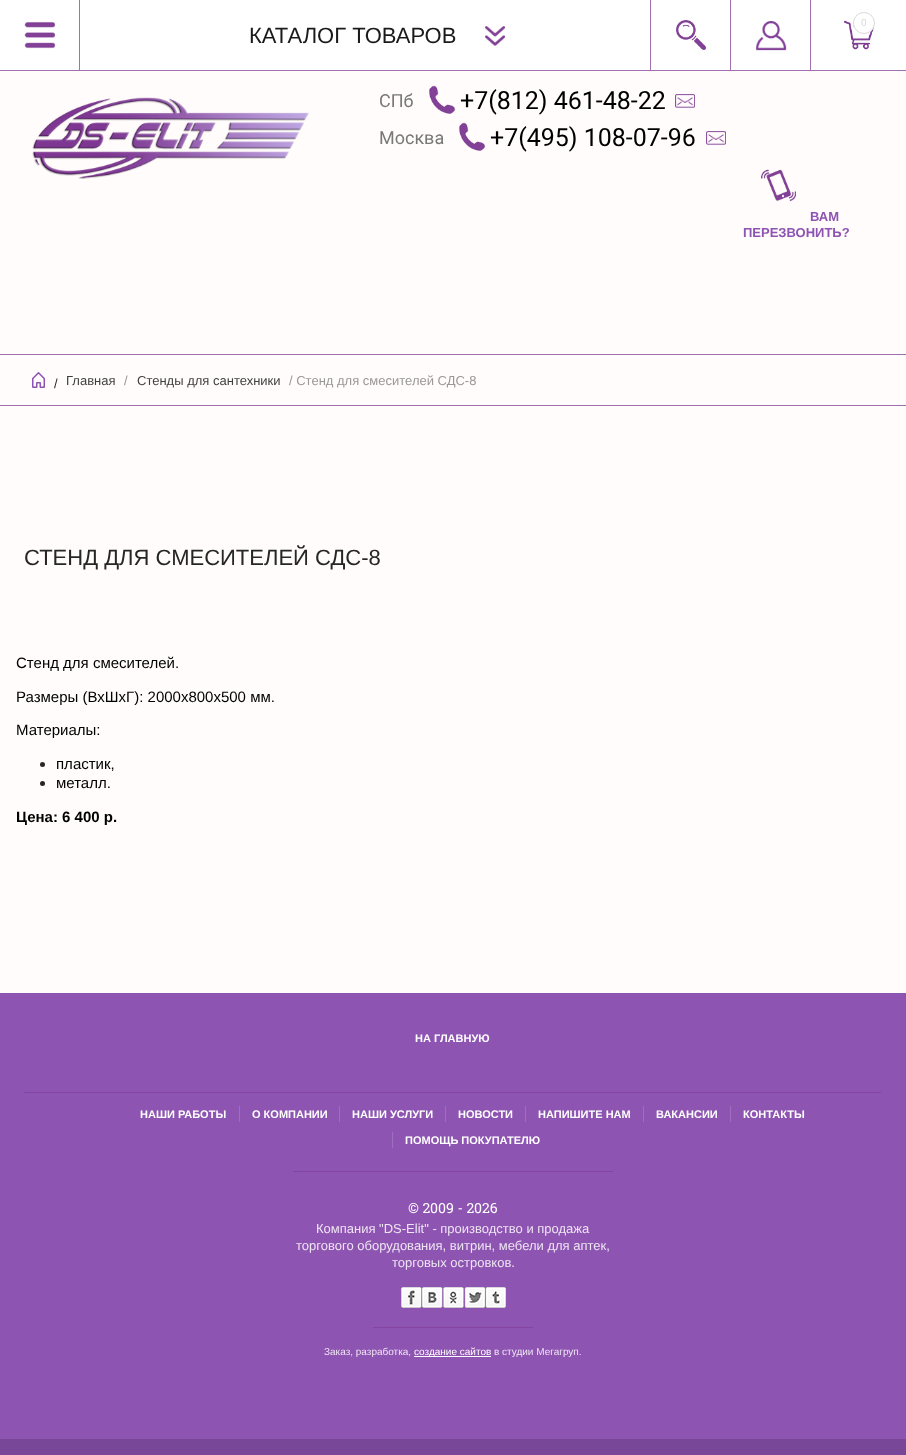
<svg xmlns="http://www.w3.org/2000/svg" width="906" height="1455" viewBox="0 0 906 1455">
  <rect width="100%" height="100%" fill="rgb(255,252,251)"/>
  <rect x="0" y="0" width="906" height="70" fill="rgb(255,255,255)"/>
  <rect x="0" y="70" width="906" height="1" fill="rgb(161,112,177)"/>
  <image x="24" y="21" width="32" height="28" href="pic1.png"/>
  <rect x="79" y="0" width="1" height="70" fill="rgb(161,112,177)"/>
  <rect x="650" y="0" width="1" height="70" fill="rgb(161,112,177)"/>
  <image x="676" y="20" width="30" height="30" href="pic2.png"/>
  <image x="756" y="21" width="31" height="30" href="pic3.png"/>
  <rect x="730" y="0" width="1" height="70" fill="rgb(161,112,177)"/>
  <image x="844" y="20" width="30" height="30" href="pic4.png"/>
  <rect x="810" y="0" width="1" height="70" fill="rgb(161,112,177)"/>
  <circle cx="864" cy="23" r="11" fill="rgb(255,255,255)"/>
  <circle cx="864" cy="23" r="10.5" fill="none" stroke="rgba(0,0,0,0.15)"/>
  <text x="861" y="26" font-family="Roboto" font-size="10" fill="rgb(217,217,217)">0</text>
  <text x="249" y="43" font-family="Liberation Sans" font-size="22" fill="rgb(26,26,26)">КАТАЛОГ ТОВАРОВ</text>
  <image x="485" y="26" width="20" height="20" href="pic5.png"/>
  <image x="32" y="97" width="277" height="82" href="pic6.png"/>
  <text x="379" y="107" font-family="Roboto" font-size="18" fill="rgb(120,120,120)">СПб</text>
  <image x="429" y="85" width="27" height="29" href="pic7.png"/>
  <text x="460" y="109" font-family="Roboto" font-size="25" fill="rgb(0,0,0)">+7(812) 461-48-22</text>
  <image x="675" y="94" width="20" height="14" href="pic8.png"/>
  <text x="379" y="144" font-family="Roboto" font-size="18" fill="rgb(120,120,120)">Москва</text>
  <image x="459" y="122" width="27" height="29" href="pic7.png"/>
  <text x="490" y="146" font-family="Roboto" font-size="25" fill="rgb(0,0,0)">+7(495) 108-07-96</text>
  <image x="706" y="131" width="20" height="14" href="pic8.png"/>
  <image x="761" y="169" width="35" height="32" href="pic9.png"/>
  <g font-family="Liberation Sans" font-size="13" font-weight="bold" fill="rgb(142,84,178)">
    <text x="810" y="221">ВАМ</text>
    <text x="743" y="237">ПЕРЕЗВОНИТЬ?</text>
  </g>
  <rect x="0" y="354" width="906" height="1" fill="rgb(161,111,176)"/>
  <rect x="0" y="405" width="906" height="1" fill="rgb(161,111,176)"/>
  <image x="32" y="372" width="13" height="16" href="pic10.png"/>
  <text x="54" y="388" font-family="Liberation Sans" font-size="13" fill="rgb(38,38,38)">/</text>
  <text x="66" y="385" font-family="Liberation Sans" font-size="13" fill="rgb(64,63,63)">Главная</text>
  <text x="124" y="385" font-family="Liberation Sans" font-size="13" fill="rgb(153,151,151)">/</text>
  <text x="137" y="385" font-family="Liberation Sans" font-size="13" fill="rgb(64,63,63)">Стенды для сантехники</text>
  <text x="289" y="385" font-family="Liberation Sans" font-size="13" fill="rgb(153,151,151)">/ Стенд для смесителей СДС-8</text>
  <text x="24" y="565" font-family="Liberation Sans" font-size="22" fill="rgb(38,38,38)">СТЕНД ДЛЯ СМЕСИТЕЛЕЙ СДС-8</text>
  <g font-family="Liberation Sans" font-size="15" fill="rgb(0,0,0)">
    <text x="16" y="668">Стенд для смесителей.</text>
    <text x="16" y="702">Размеры (ВхШхГ): 2000х800х500 мм.</text>
    <text x="16" y="735">Материалы:</text>
  </g>
  <circle cx="42.5" cy="764.5" r="2.5" fill="rgb(38,38,38)"/>
  <text x="56" y="769" font-family="Liberation Sans" font-size="15" fill="rgb(0,0,0)">пластик,</text>
  <circle cx="42.5" cy="783.5" r="2.5" fill="rgb(38,38,38)"/>
  <text x="56" y="788" font-family="Liberation Sans" font-size="15" fill="rgb(0,0,0)">металл.</text>
  <text x="16" y="822" font-family="Liberation Sans" font-size="15" font-weight="bold" fill="rgb(0,0,0)">Цена: 6 400 р.</text>
  <rect x="0" y="993" width="906" height="446" fill="rgb(142,84,178)"/>
  <rect x="0" y="1439" width="906" height="16" fill="rgb(121,71,151)"/>
  <rect x="24" y="1092" width="857" height="1" fill="rgb(133,69,158)"/>
  <g font-family="Liberation Sans" font-size="11" font-weight="bold" fill="rgb(255,255,255)">
    <text x="415" y="1042">НА ГЛАВНУЮ</text>
    <text x="140" y="1118">НАШИ РАБОТЫ</text>
  </g>
  <rect x="239" y="1106" width="1" height="16" fill="rgb(159,110,190)"/>
  <text x="252" y="1118" font-family="Liberation Sans" font-size="11" font-weight="bold" fill="rgb(255,255,255)">О КОМПАНИИ</text>
  <rect x="339" y="1106" width="1" height="16" fill="rgb(159,110,190)"/>
  <text x="352" y="1118" font-family="Liberation Sans" font-size="11" font-weight="bold" fill="rgb(255,255,255)">НАШИ УСЛУГИ</text>
  <rect x="445" y="1106" width="1" height="16" fill="rgb(159,110,190)"/>
  <text x="458" y="1118" font-family="Liberation Sans" font-size="11" font-weight="bold" fill="rgb(255,255,255)">НОВОСТИ</text>
  <rect x="525" y="1106" width="1" height="16" fill="rgb(159,110,190)"/>
  <text x="538" y="1118" font-family="Liberation Sans" font-size="11" font-weight="bold" fill="rgb(255,255,255)">НАПИШИТЕ НАМ</text>
  <rect x="643" y="1106" width="1" height="16" fill="rgb(159,110,190)"/>
  <text x="656" y="1118" font-family="Liberation Sans" font-size="11" font-weight="bold" fill="rgb(255,255,255)">ВАКАНСИИ</text>
  <rect x="730" y="1106" width="1" height="16" fill="rgb(159,110,190)"/>
  <text x="743" y="1118" font-family="Liberation Sans" font-size="11" font-weight="bold" fill="rgb(255,255,255)">КОНТАКТЫ</text>
  <rect x="392" y="1132" width="1" height="16" fill="rgb(159,110,190)"/>
  <text x="405" y="1144" font-family="Liberation Sans" font-size="11" font-weight="bold" fill="rgb(255,255,255)">ПОМОЩЬ ПОКУПАТЕЛЮ</text>
  <rect x="293" y="1171" width="320" height="1" fill="rgb(133,69,158)"/>
  <text x="408" y="1213" font-family="Roboto Slab" font-size="14" fill="rgb(255,255,255)">© 2009 - 2026</text>
  <g font-family="Liberation Sans" font-size="13" fill="rgb(238,229,243)">
    <text x="316" y="1233">Компания "DS-Elit" - производство и продажа</text>
    <text x="296" y="1250">торгового оборудования, витрин, мебели для аптек,</text>
    <text x="392" y="1267">торговых островков.</text>
  </g>
  <rect x="373" y="1327" width="160" height="1" fill="rgb(133,69,158)"/>
  <image x="401" y="1287" width="21" height="21" href="pic11.png"/>
  <image x="422" y="1287" width="21" height="21" href="pic12.png"/>
  <image x="443" y="1287" width="21" height="21" href="pic13.png"/>
  <image x="464" y="1287" width="21" height="21" href="pic14.png"/>
  <image x="485" y="1287" width="21" height="21" href="pic15.png"/>
  <text x="324" y="1355" font-family="Liberation Sans" font-size="10" fill="rgb(238,229,243)">Заказ, разработка,</text>
  <rect x="414" y="1356" width="77" height="1" fill="rgb(255,255,255)"/>
  <text x="414" y="1355" font-family="Liberation Sans" font-size="10" fill="rgb(255,255,255)">создание сайтов</text>
  <text x="494" y="1355" font-family="Liberation Sans" font-size="10" fill="rgb(238,229,243)">в студии Мегагруп.</text>
</svg>
